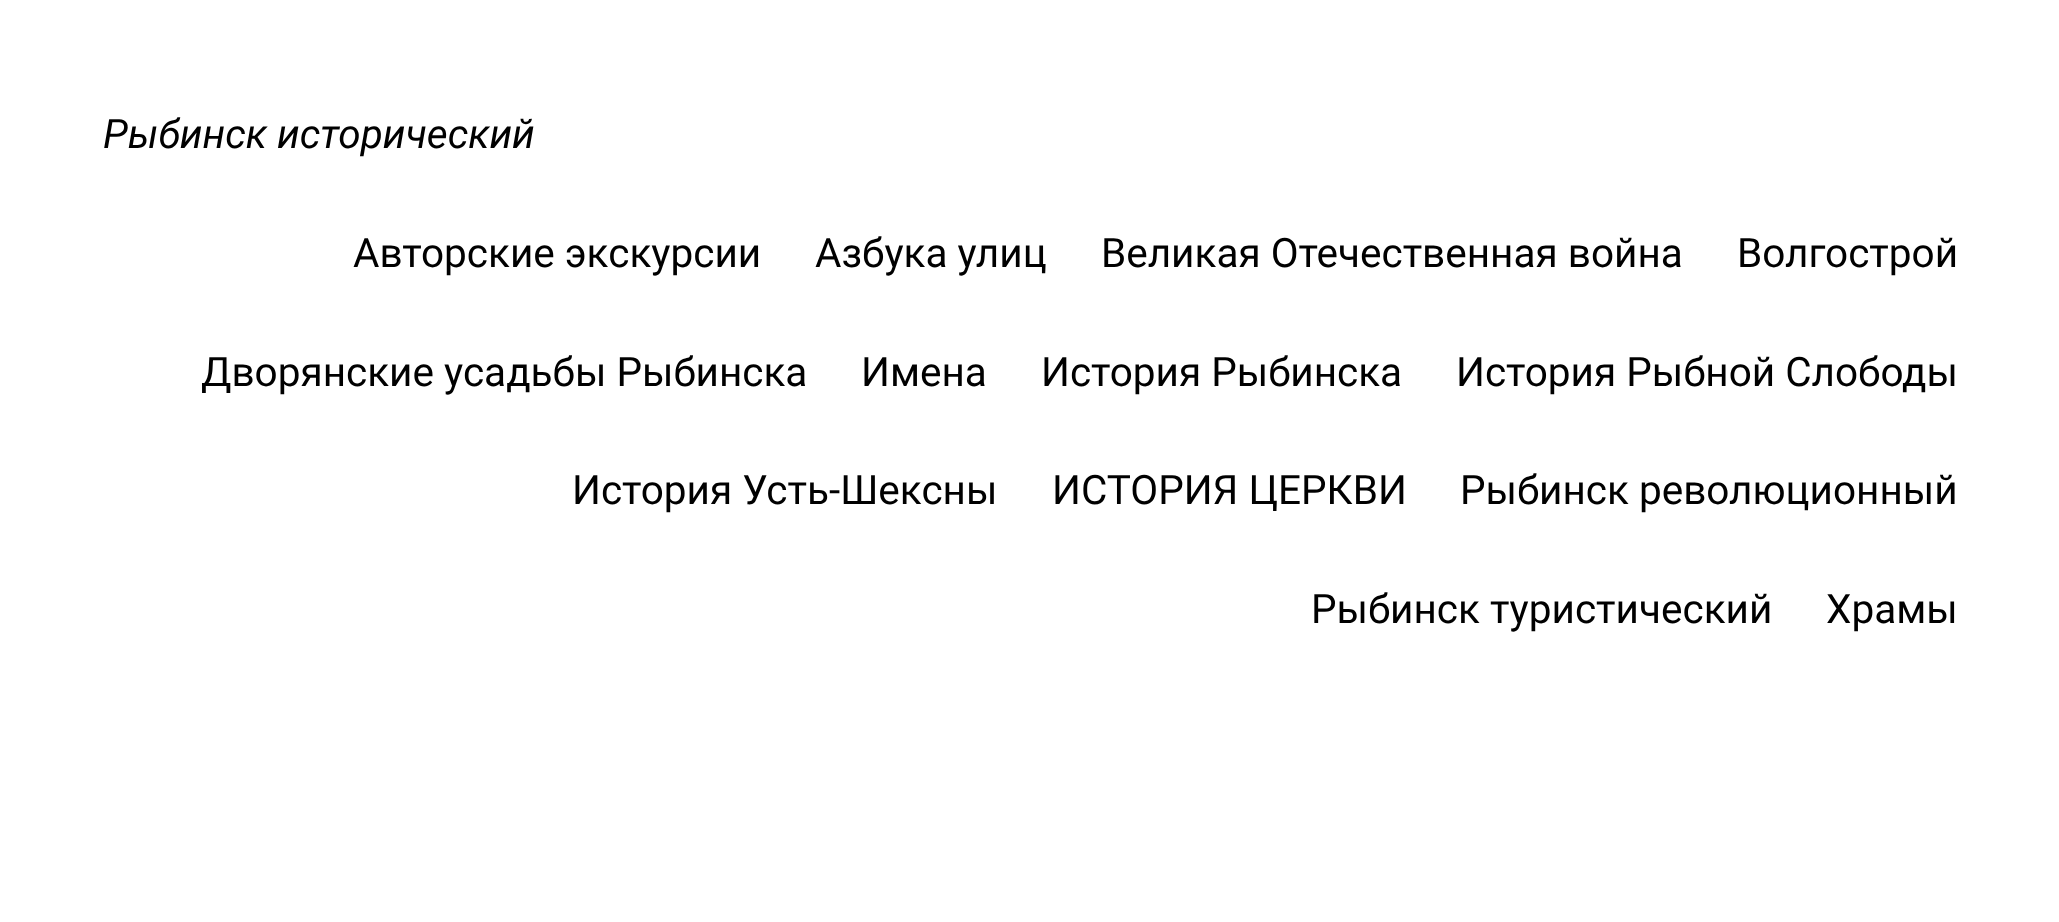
<svg xmlns="http://www.w3.org/2000/svg" width="2059" height="922" viewBox="0 0 2059 922">
  <rect width="100%" height="100%" fill="rgb(255,255,255)"/>
  <text x="103" y="148" font-family="Roboto" font-size="40.5" font-style="italic" fill="rgb(0,0,0)">Рыбинск исторический</text>
  <g font-family="Roboto" font-size="40.5" fill="rgb(0,0,0)">
    <text x="353" y="267">Авторские экскурсии</text>
    <text x="815" y="267">Азбука улиц</text>
    <text x="1101" y="267">Великая Отечественная война</text>
    <text x="1737" y="267">Волгострой</text>
    <text x="201" y="386">Дворянские усадьбы Рыбинска</text>
    <text x="861" y="386">Имена</text>
    <text x="1041" y="386">История Рыбинска</text>
    <text x="1456" y="386">История Рыбной Слободы</text>
    <text x="572" y="504">История Усть-Шексны</text>
    <text x="1052" y="504">ИСТОРИЯ ЦЕРКВИ</text>
    <text x="1460" y="504">Рыбинск революционный</text>
    <text x="1311" y="623">Рыбинск туристический</text>
    <text x="1826" y="623">Храмы</text>
  </g>
</svg>
